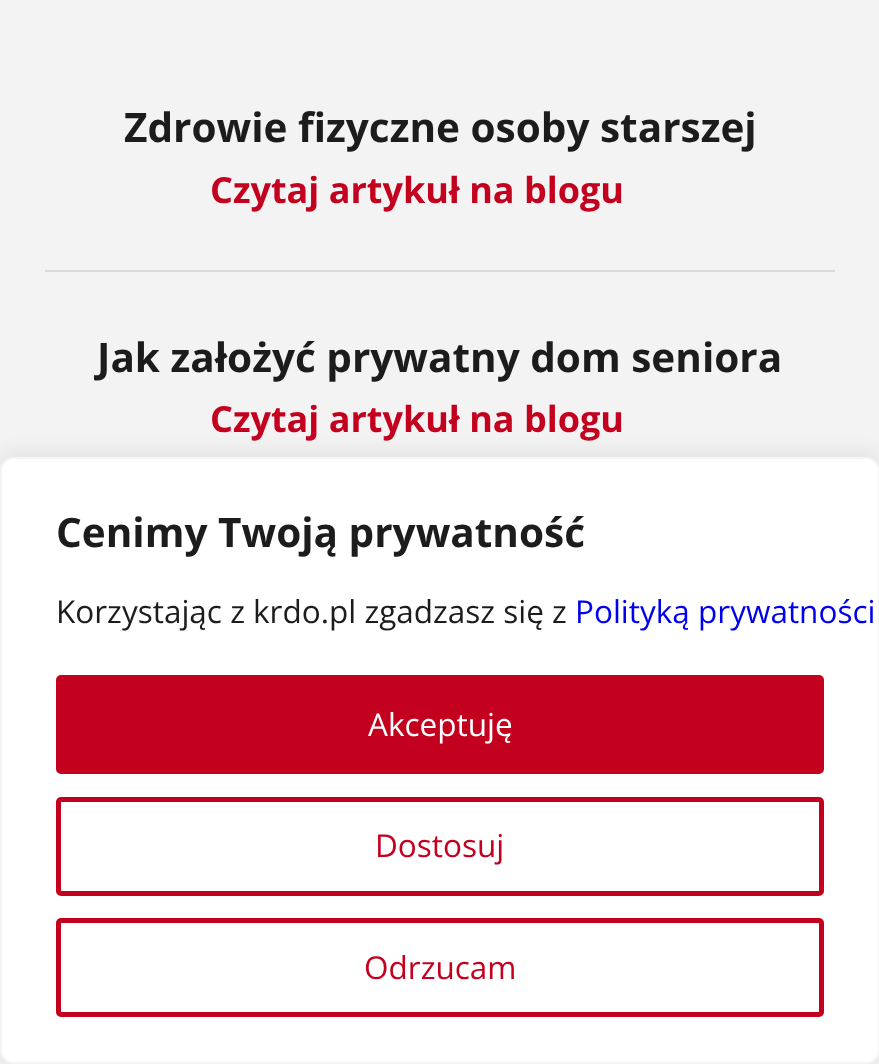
<svg xmlns="http://www.w3.org/2000/svg" width="879" height="1064" viewBox="0 0 879 1064">
  <defs>
    <linearGradient id="g1" gradientUnits="userSpaceOnUse" x1="440" y1="-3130" x2="440" y2="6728"><stop offset="0" stop-color="rgb(243,243,243)"/><stop offset="0.5" stop-color="rgb(243,243,243)"/><stop offset="1" stop-color="rgb(230,230,230)"/></linearGradient>
  </defs>
  <rect width="100%" height="100%" fill="rgb(255,255,255)"/>
  <rect x="0" y="0" width="879" height="1064" fill="url(#g1)"/>
  <rect x="45" y="270" width="790" height="2" fill="rgb(217,217,217)"/>
  <text x="124" y="142" font-family="Open Sans" font-size="40.5" font-weight="bold" fill="rgb(28,28,28)">Zdrowie fizyczne osoby starszej</text>
  <text x="210" y="203" font-family="Open Sans" font-size="36" font-weight="bold" fill="rgb(196,0,31)">Czytaj artykuł na blogu</text>
  <text x="97" y="372" font-family="Open Sans" font-size="40.5" font-weight="bold" fill="rgb(28,28,28)">Jak założyć prywatny dom seniora</text>
  <text x="210" y="432" font-family="Open Sans" font-size="36" font-weight="bold" fill="rgb(196,0,31)">Czytaj artykuł na blogu</text>
  <rect x="0" y="455" width="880" height="607" rx="14" fill="rgba(172,171,171,0.3)" filter="blur(11px)"/>
  <rect x="1" y="458" width="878" height="605" rx="13" fill="rgb(255,255,255)" stroke="rgb(244,244,244)" stroke-width="2"/>
  <text x="56" y="547" font-family="Open Sans" font-size="40.5" font-weight="bold" fill="rgb(28,28,28)">Cenimy Twoją prywatność</text>
  <text x="56" y="623" font-family="Open Sans" font-size="31.5" fill="rgb(28,28,28)">Korzystając z krdo.pl zgadzasz się z</text>
  <text x="575" y="623" font-family="Open Sans" font-size="31.5" fill="rgb(0,0,238)">Polityką prywatności</text>
  <rect x="58.5" y="677.5" width="763" height="94" rx="2.5" fill="rgb(196,0,31)" stroke="rgb(196,0,31)" stroke-width="5"/>
  <text x="368" y="736" font-family="Open Sans" font-size="31.5" fill="rgb(255,255,255)">Akceptuję</text>
  <rect x="58.5" y="799.5" width="763" height="94" rx="2.5" fill="none" stroke="rgb(196,0,31)" stroke-width="5"/>
  <text x="375" y="857" font-family="Open Sans" font-size="31.5" fill="rgb(196,0,31)">Dostosuj</text>
  <rect x="58.5" y="920.5" width="763" height="94" rx="2.5" fill="none" stroke="rgb(196,0,31)" stroke-width="5"/>
  <text x="364" y="979" font-family="Open Sans" font-size="31.5" fill="rgb(196,0,31)">Odrzucam</text>
</svg>
